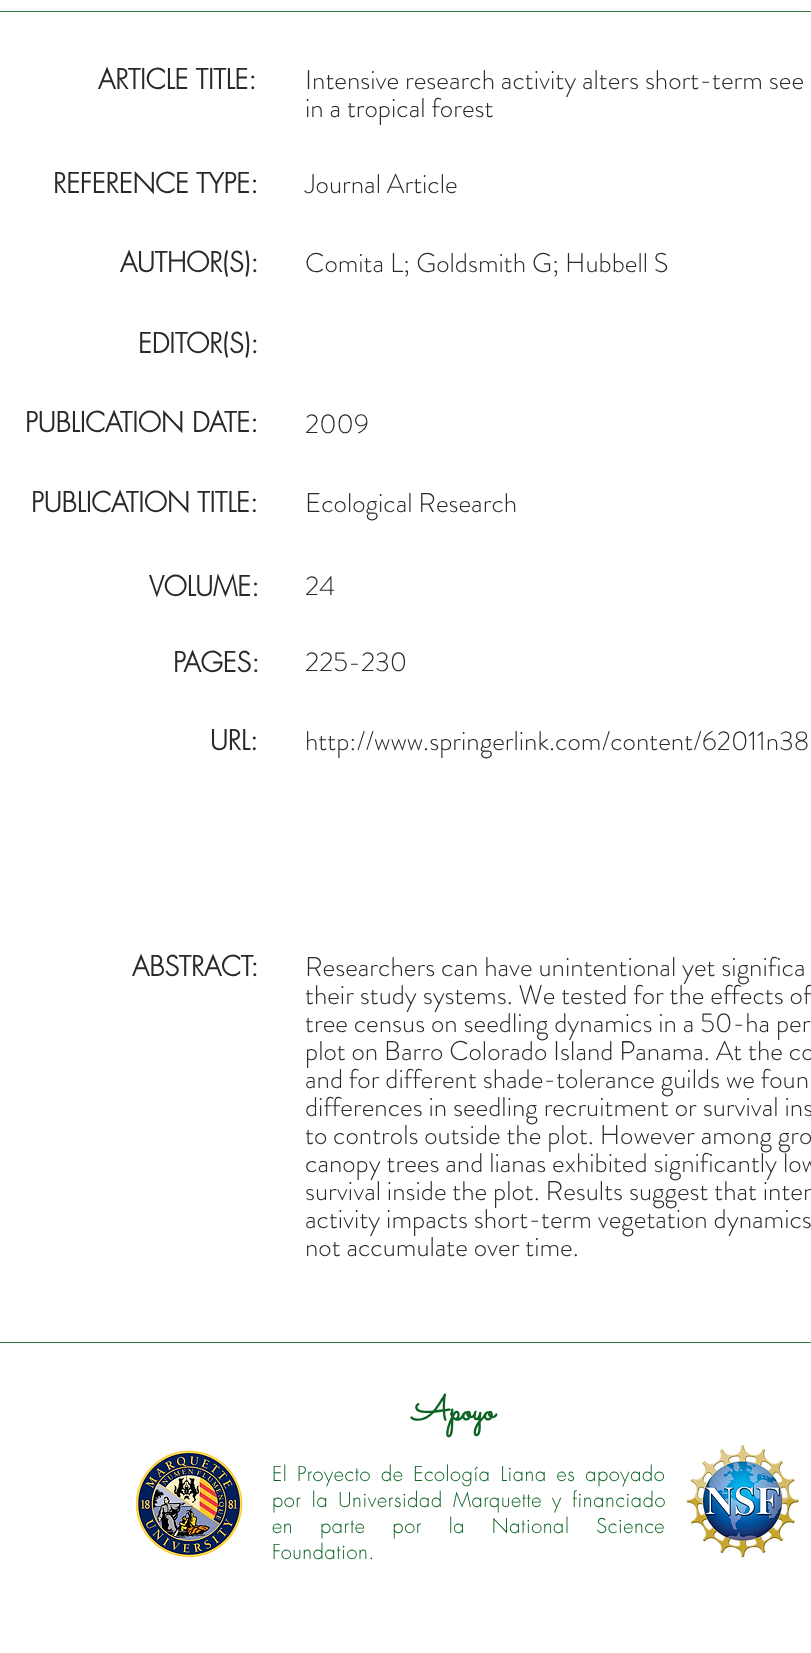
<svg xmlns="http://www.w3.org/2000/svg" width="811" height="1653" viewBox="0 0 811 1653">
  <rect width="100%" height="100%" fill="rgb(255,255,255)"/>
  <rect x="0" y="11" width="811" height="1" fill="rgb(48,122,68)"/>
  <text x="98" y="89" font-family="futura" font-size="27" font-weight="bold" fill="rgb(41,41,41)">ARTICLE TITLE:</text>
  <g font-family="'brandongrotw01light'" font-size="27" font-weight="300" fill="rgb(41,41,41)">
    <text>
      <tspan x="305" y="89">Intensive research activity alters short-term see</tspan>
      <tspan x="305" y="117">in a tropical forest</tspan>
    </text>
  </g>
  <text x="53" y="193" font-family="futura" font-size="27" font-weight="bold" fill="rgb(41,41,41)">REFERENCE TYPE:</text>
  <text x="305" y="193" font-family="'brandongrotw01light'" font-size="27" font-weight="300" fill="rgb(41,41,41)">Journal Article</text>
  <text x="120" y="272" font-family="futura" font-size="27" font-weight="bold" fill="rgb(41,41,41)">AUTHOR(S):</text>
  <text x="305" y="272" font-family="'brandongrotw01light'" font-size="27" font-weight="300" fill="rgb(41,41,41)">Comita L; Goldsmith G; Hubbell S</text>
  <g font-family="futura" font-size="27" font-weight="bold" fill="rgb(41,41,41)">
    <text x="138" y="353">EDITOR(S):</text>
    <text x="25" y="432">PUBLICATION DATE:</text>
  </g>
  <text x="305" y="433" font-family="'brandongrotw01light'" font-size="27" font-weight="300" fill="rgb(41,41,41)">2009</text>
  <text x="31" y="512" font-family="futura" font-size="27" font-weight="bold" fill="rgb(41,41,41)">PUBLICATION TITLE:</text>
  <text x="305" y="512" font-family="'brandongrotw01light'" font-size="27" font-weight="300" fill="rgb(41,41,41)">Ecological Research</text>
  <text x="149" y="596" font-family="futura" font-size="27" font-weight="bold" fill="rgb(41,41,41)">VOLUME:</text>
  <text x="305" y="595" font-family="'brandongrotw01light'" font-size="27" font-weight="300" fill="rgb(41,41,41)">24</text>
  <text x="173" y="672" font-family="futura" font-size="27" font-weight="bold" fill="rgb(41,41,41)">PAGES:</text>
  <text x="305" y="671" font-family="'brandongrotw01light'" font-size="27" font-weight="300" fill="rgb(41,41,41)">225-230</text>
  <text x="210" y="750" font-family="futura" font-size="27" font-weight="bold" fill="rgb(41,41,41)">URL:</text>
  <text x="305" y="750" font-family="'brandongrotw01light'" font-size="27" font-weight="300" fill="rgb(41,41,41)">http://www.springerlink.com/content/62011n38</text>
  <text x="132" y="976" font-family="futura" font-size="27" font-weight="bold" fill="rgb(41,41,41)">ABSTRACT:</text>
  <g font-family="'brandongrotw01light'" font-size="27" font-weight="300" fill="rgb(41,41,41)">
    <text>
      <tspan x="305" y="976">Researchers can have unintentional yet significa</tspan>
      <tspan x="305" y="1004">their study systems. We tested for the effects of</tspan>
      <tspan x="305" y="1032">tree census on seedling dynamics in a 50-ha per</tspan>
      <tspan x="305" y="1060">plot on Barro Colorado Island Panama. At the co</tspan>
      <tspan x="305" y="1088">and for different shade-tolerance guilds we foun</tspan>
      <tspan x="305" y="1116">differences in seedling recruitment or survival ins</tspan>
      <tspan x="305" y="1144">to controls outside the plot. However among gro</tspan>
      <tspan x="305" y="1172">canopy trees and lianas exhibited significantly low</tspan>
      <tspan x="305" y="1200">survival inside the plot. Results suggest that inten</tspan>
      <tspan x="305" y="1228">activity impacts short-term vegetation dynamics</tspan>
      <tspan x="305" y="1256">not accumulate over time.</tspan>
    </text>
  </g>
  <rect x="0" y="1342" width="811" height="1" fill="rgb(48,122,68)"/>
  <text x="412" y="1420" font-family="Sacramento" font-size="35" font-weight="bold" fill="rgb(12,99,35)">Apoyo</text>
  <image x="135" y="1450" width="108" height="108" href="pic1.png"/>
  <g font-family="futura" font-size="20" font-weight="300" letter-spacing="0.6" fill="rgb(12,99,35)">
    <text>
      <tspan x="272" y="1481" word-spacing="3">El Proyecto de Ecología Liana es apoyado</tspan>
      <tspan x="272" y="1507" word-spacing="3.5">por la Universidad Marquette y financiado</tspan>
      <tspan x="272" y="1533" word-spacing="20">en parte por la National Science</tspan>
      <tspan x="272" y="1559">Foundation.</tspan>
    </text>
  </g>
  <image x="686" y="1445" width="113" height="112" href="pic2.png"/>
</svg>
